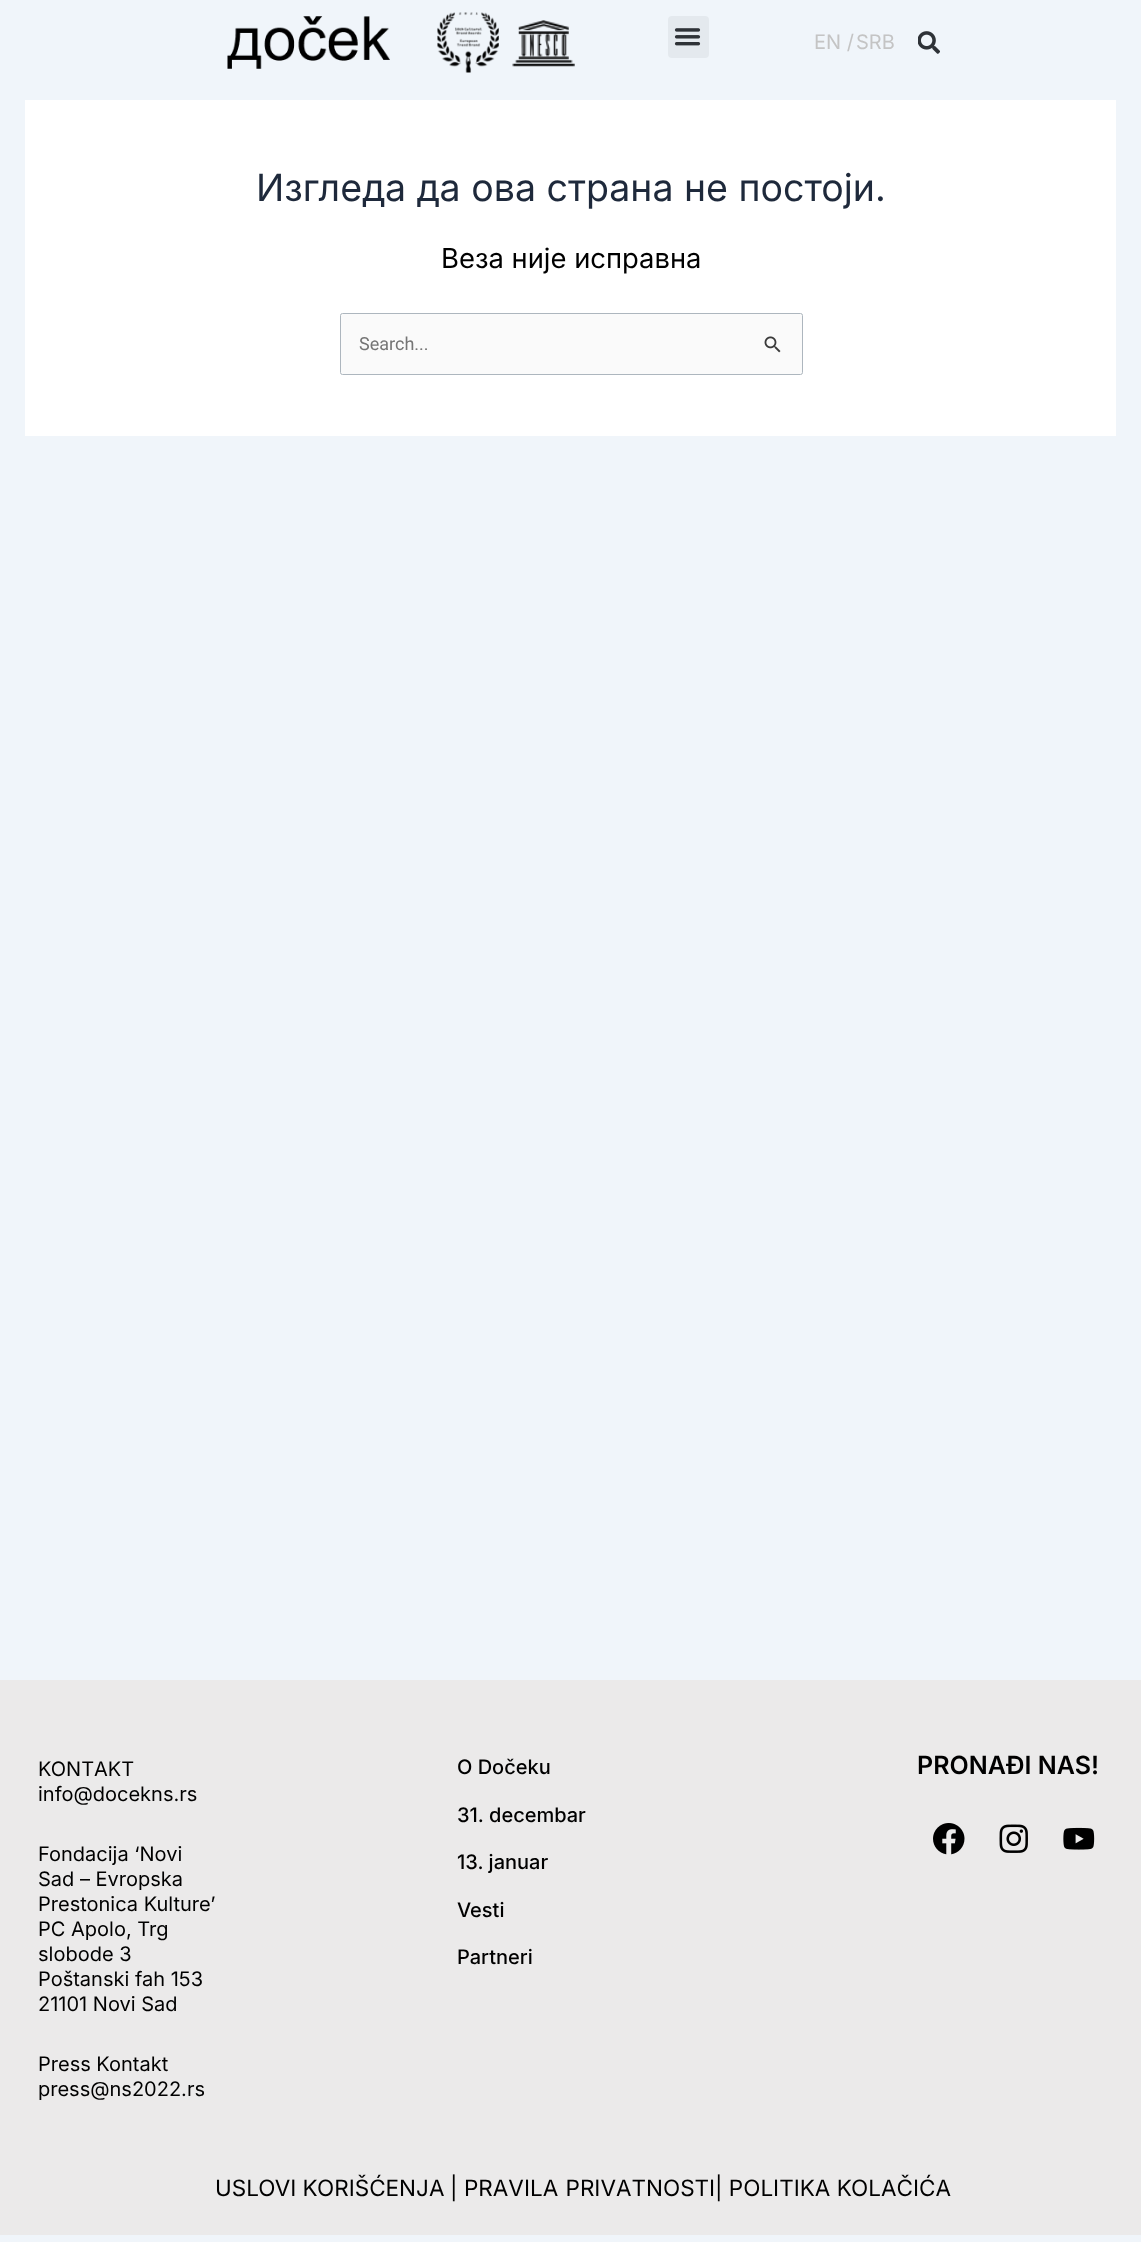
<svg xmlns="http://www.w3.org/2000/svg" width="1141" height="2242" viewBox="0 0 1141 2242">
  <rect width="100%" height="100%" fill="rgb(240,245,250)"/>
  <image x="227" y="16" width="163" height="53" href="pic1.png"/>
  <image x="437" y="12" width="62" height="61" href="pic2.png"/>
  <image x="512" y="20" width="63" height="47" href="pic3.png"/>
  <rect x="668" y="16" width="41" height="42" rx="4" fill="rgb(228,233,238)"/>
  <image x="674" y="28" width="27" height="18" href="pic4.png"/>
  <g font-family="Inter" font-size="20" fill="rgb(196,196,196)">
    <text x="814" y="49">EN /</text>
    <text x="856" y="49">SRB</text>
  </g>
  <image x="918" y="31" width="22" height="23" href="pic5.png"/>
  <rect x="25" y="100" width="1091" height="336" fill="rgb(255,255,255)"/>
  <text x="256" y="201" font-family="Inter" font-size="37.5" fill="rgb(30,41,59)">Изгледа да ова страна не постоји.</text>
  <text x="441" y="268" font-family="Inter" font-size="27.4" fill="rgb(0,0,0)">Веза није исправна</text>
  <rect x="340.5" y="313.5" width="462" height="61" rx="2" fill="rgb(250,250,250)" stroke="rgb(173,182,190)"/>
  <text x="359" y="350" font-family="Roboto" font-size="18" fill="rgb(117,117,117)">Search...</text>
  <image x="764" y="336" width="17" height="17" href="pic6.png"/>
  <rect x="0" y="1680" width="1141" height="555" fill="rgb(235,234,234)"/>
  <g font-family="Inter" font-size="20" fill="rgb(0,0,0)">
    <text>
      <tspan x="38" y="1776">KONTAKT</tspan>
      <tspan x="38" y="1801">info@docekns.rs</tspan>
    </text>
    <text>
      <tspan x="38" y="1861">Fondacija ‘Novi</tspan>
      <tspan x="38" y="1886">Sad – Evropska</tspan>
      <tspan x="38" y="1911">Prestonica Kulture’</tspan>
      <tspan x="38" y="1936">PC Apolo, Trg</tspan>
      <tspan x="38" y="1961">slobode 3</tspan>
      <tspan x="38" y="1986">Poštanski fah 153</tspan>
      <tspan x="38" y="2011">21101 Novi Sad</tspan>
    </text>
    <text>
      <tspan x="38" y="2071">Press Kontakt</tspan>
      <tspan x="38" y="2096">press@ns2022.rs</tspan>
    </text>
  </g>
  <g font-family="Inter" font-size="20" font-weight="500" fill="rgb(0,0,0)">
    <text x="457" y="1774">O Dočeku</text>
    <text x="457" y="1822">31. decembar</text>
    <text x="457" y="1869">13. januar</text>
    <text x="457" y="1917">Vesti</text>
    <text x="457" y="1964">Partneri</text>
  </g>
  <text x="917" y="1774" font-family="Inter" font-size="25" font-weight="600" fill="rgb(0,0,0)">PRONAĐI NAS!</text>
  <image x="933" y="1823" width="32" height="32" href="pic7.png"/>
  <image x="999" y="1824" width="29" height="29" href="pic8.png"/>
  <image x="1063" y="1827" width="32" height="23" href="pic9.png"/>
  <g font-family="Inter" font-size="22.5" fill="rgb(0,0,0)">
    <text x="215" y="2196">USLOVI KORIŠĆENJA</text>
    <text x="450" y="2196">|</text>
    <text x="464" y="2196" word-spacing="1">PRAVILA PRIVATNOSTI</text>
    <text x="715" y="2196">| POLITIKA KOLAČIĆA</text>
  </g>
</svg>
